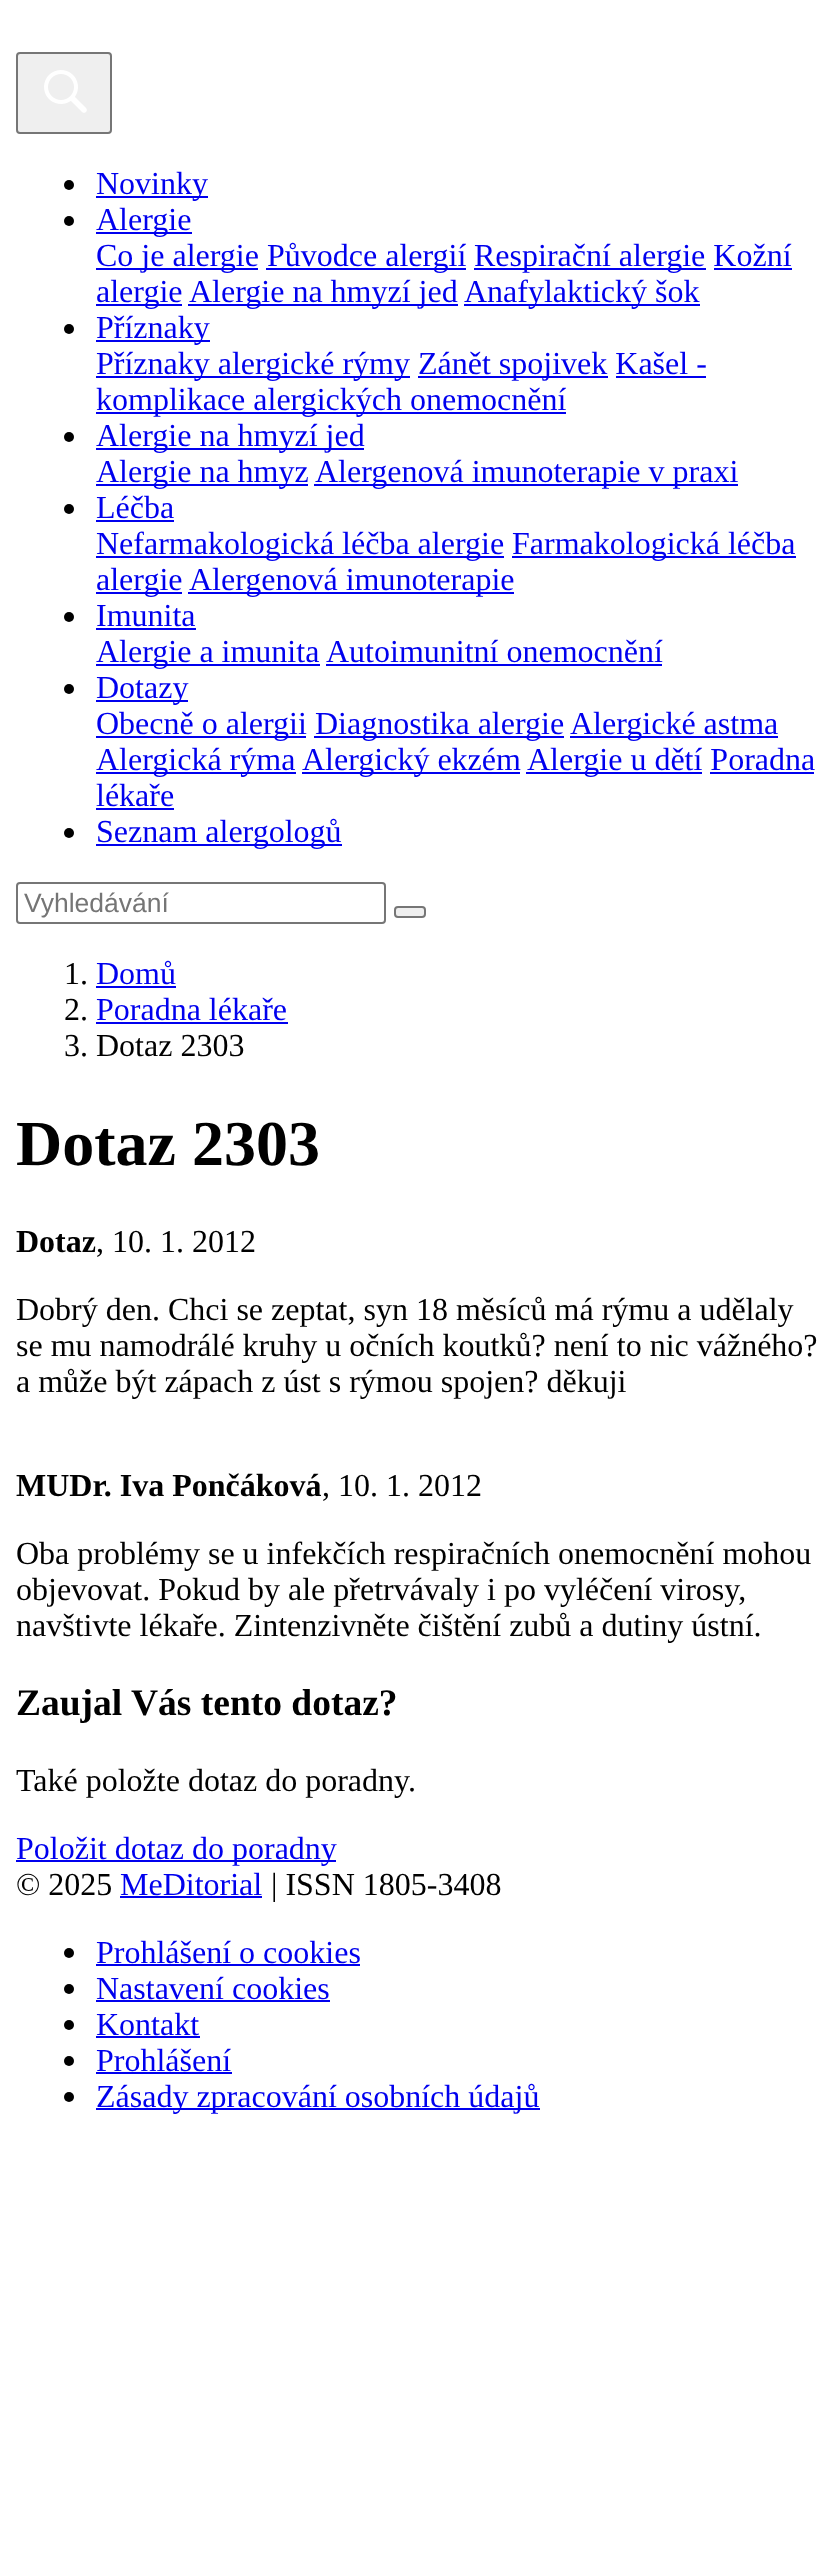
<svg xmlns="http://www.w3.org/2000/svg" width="835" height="2563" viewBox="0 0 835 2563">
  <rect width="100%" height="100%" fill="rgb(255,255,255)"/>
  <rect x="17" y="53" width="94" height="80" rx="3" fill="rgb(239,239,239)" stroke="rgb(118,118,118)" stroke-width="2"/>
  <image x="44" y="70" width="43" height="43" href="pic1.png"/>
  <circle cx="69" cy="185" r="5" fill="rgb(0,0,0)"/>
  <rect x="96" y="196" width="112" height="2" fill="rgb(0,0,238)"/>
  <text x="96" y="194" font-family="Liberation Serif" font-size="32" fill="rgb(0,0,238)">Novinky</text>
  <circle cx="69" cy="221" r="5" fill="rgb(0,0,0)"/>
  <rect x="96" y="232" width="96" height="2" fill="rgb(0,0,238)"/>
  <text x="96" y="230" font-family="Liberation Serif" font-size="32" fill="rgb(0,0,238)">Alergie</text>
  <rect x="96" y="268" width="162" height="2" fill="rgb(0,0,238)"/>
  <text x="96" y="266" font-family="Liberation Serif" font-size="32" fill="rgb(0,0,238)">Co je alergie</text>
  <rect x="266" y="268" width="200" height="2" fill="rgb(0,0,238)"/>
  <text x="267" y="266" font-family="Liberation Serif" font-size="32" fill="rgb(0,0,238)">Původce alergií</text>
  <rect x="474" y="268" width="232" height="2" fill="rgb(0,0,238)"/>
  <text x="474" y="266" font-family="Liberation Serif" font-size="32" fill="rgb(0,0,238)">Respirační alergie Kožní</text>
  <rect x="96" y="304" width="86" height="2" fill="rgb(0,0,238)"/>
  <text x="96" y="302" font-family="Liberation Serif" font-size="32" fill="rgb(0,0,238)">alergie</text>
  <rect x="714" y="268" width="78" height="2" fill="rgb(0,0,238)"/>
  <rect x="188" y="304" width="270" height="2" fill="rgb(0,0,238)"/>
  <text x="189" y="302" font-family="Liberation Serif" font-size="32" fill="rgb(0,0,238)">Alergie na hmyzí jed</text>
  <rect x="464" y="304" width="236" height="2" fill="rgb(0,0,238)"/>
  <text x="464" y="302" font-family="Liberation Serif" font-size="32" fill="rgb(0,0,238)">Anafylaktický šok</text>
  <circle cx="69" cy="329" r="5" fill="rgb(0,0,0)"/>
  <rect x="96" y="340" width="114" height="2" fill="rgb(0,0,238)"/>
  <text x="96" y="338" font-family="Liberation Serif" font-size="32" fill="rgb(0,0,238)">Příznaky</text>
  <rect x="96" y="376" width="314" height="2" fill="rgb(0,0,238)"/>
  <text x="96" y="374" font-family="Liberation Serif" font-size="32" fill="rgb(0,0,238)">Příznaky alergické rýmy</text>
  <rect x="418" y="376" width="190" height="2" fill="rgb(0,0,238)"/>
  <text x="418" y="374" font-family="Liberation Serif" font-size="32" fill="rgb(0,0,238)">Zánět spojivek Kašel -</text>
  <rect x="96" y="412" width="470" height="2" fill="rgb(0,0,238)"/>
  <text x="96" y="410" font-family="Liberation Serif" font-size="32" fill="rgb(0,0,238)">komplikace alergických onemocnění</text>
  <rect x="616" y="376" width="90" height="2" fill="rgb(0,0,238)"/>
  <circle cx="69" cy="437" r="5" fill="rgb(0,0,0)"/>
  <rect x="96" y="448" width="268" height="2" fill="rgb(0,0,238)"/>
  <text x="96" y="446" font-family="Liberation Serif" font-size="32" fill="rgb(0,0,238)">Alergie na hmyzí jed</text>
  <rect x="96" y="484" width="212" height="2" fill="rgb(0,0,238)"/>
  <text x="96" y="482" font-family="Liberation Serif" font-size="32" fill="rgb(0,0,238)">Alergie na hmyz</text>
  <rect x="314" y="484" width="424" height="2" fill="rgb(0,0,238)"/>
  <text x="315" y="482" font-family="Liberation Serif" font-size="32" fill="rgb(0,0,238)">Alergenová imunoterapie v praxi</text>
  <circle cx="69" cy="509" r="5" fill="rgb(0,0,0)"/>
  <text x="96" y="518" font-family="Liberation Serif" font-size="32" fill="rgb(0,0,238)">Léčba</text>
  <rect x="96" y="520" width="78" height="2" fill="rgb(0,0,238)"/>
  <rect x="96" y="556" width="408" height="2" fill="rgb(0,0,238)"/>
  <text x="96" y="554" font-family="Liberation Serif" font-size="32" fill="rgb(0,0,238)">Nefarmakologická léčba alergie</text>
  <rect x="512" y="556" width="284" height="2" fill="rgb(0,0,238)"/>
  <text x="512" y="554" font-family="Liberation Serif" font-size="32" fill="rgb(0,0,238)">Farmakologická léčba</text>
  <rect x="96" y="592" width="86" height="2" fill="rgb(0,0,238)"/>
  <text x="96" y="590" font-family="Liberation Serif" font-size="32" fill="rgb(0,0,238)">alergie</text>
  <rect x="188" y="592" width="326" height="2" fill="rgb(0,0,238)"/>
  <text x="189" y="590" font-family="Liberation Serif" font-size="32" fill="rgb(0,0,238)">Alergenová imunoterapie</text>
  <circle cx="69" cy="617" r="5" fill="rgb(0,0,0)"/>
  <text x="96" y="626" font-family="Liberation Serif" font-size="32" fill="rgb(0,0,238)">Imunita</text>
  <rect x="96" y="628" width="100" height="2" fill="rgb(0,0,238)"/>
  <rect x="96" y="664" width="224" height="2" fill="rgb(0,0,238)"/>
  <g font-family="Liberation Serif" font-size="32" fill="rgb(0,0,238)">
    <text x="96" y="662">Alergie a imunita</text>
    <text x="326" y="662">Autoimunitní onemocnění</text>
  </g>
  <rect x="326" y="664" width="336" height="2" fill="rgb(0,0,238)"/>
  <circle cx="69" cy="689" r="5" fill="rgb(0,0,0)"/>
  <rect x="96" y="700" width="92" height="2" fill="rgb(0,0,238)"/>
  <text x="96" y="698" font-family="Liberation Serif" font-size="32" fill="rgb(0,0,238)">Dotazy</text>
  <rect x="96" y="736" width="210" height="2" fill="rgb(0,0,238)"/>
  <text x="96" y="734" font-family="Liberation Serif" font-size="32" fill="rgb(0,0,238)">Obecně o alergii</text>
  <rect x="314" y="736" width="250" height="2" fill="rgb(0,0,238)"/>
  <text x="315" y="734" font-family="Liberation Serif" font-size="32" fill="rgb(0,0,238)">Diagnostika alergie</text>
  <rect x="570" y="736" width="208" height="2" fill="rgb(0,0,238)"/>
  <text x="570" y="734" font-family="Liberation Serif" font-size="32" fill="rgb(0,0,238)">Alergické astma</text>
  <rect x="96" y="772" width="200" height="2" fill="rgb(0,0,238)"/>
  <text x="96" y="770" font-family="Liberation Serif" font-size="32" fill="rgb(0,0,238)">Alergická rýma</text>
  <rect x="302" y="772" width="218" height="2" fill="rgb(0,0,238)"/>
  <text x="302" y="770" font-family="Liberation Serif" font-size="32" fill="rgb(0,0,238)">Alergický ekzém</text>
  <rect x="526" y="772" width="176" height="2" fill="rgb(0,0,238)"/>
  <g font-family="Liberation Serif" font-size="32" fill="rgb(0,0,238)">
    <text x="527" y="770">Alergie u dětí Poradna</text>
    <text x="96" y="806">lékaře</text>
  </g>
  <rect x="710" y="772" width="104" height="2" fill="rgb(0,0,238)"/>
  <rect x="96" y="808" width="78" height="2" fill="rgb(0,0,238)"/>
  <circle cx="69" cy="833" r="5" fill="rgb(0,0,0)"/>
  <rect x="96" y="844" width="246" height="2" fill="rgb(0,0,238)"/>
  <text x="96" y="842" font-family="Liberation Serif" font-size="32" fill="rgb(0,0,238)">Seznam alergologů</text>
  <rect x="17" y="883" width="368" height="40" rx="3" fill="none" stroke="rgb(118,118,118)" stroke-width="2"/>
  <text x="24" y="912" font-family="Liberation Sans" font-size="26.5" fill="rgb(117,117,117)">Vyhledávání</text>
  <rect x="395" y="907" width="30" height="10" rx="3" fill="rgb(239,239,239)" stroke="rgb(118,118,118)" stroke-width="2"/>
  <text x="64" y="984" font-family="Liberation Serif" font-size="32" fill="rgb(0,0,0)">1.</text>
  <text x="96" y="984" font-family="Liberation Serif" font-size="32" fill="rgb(0,0,238)">Domů</text>
  <rect x="96" y="986" width="80" height="2" fill="rgb(0,0,238)"/>
  <text x="64" y="1020" font-family="Liberation Serif" font-size="32" fill="rgb(0,0,0)">2.</text>
  <text x="96" y="1020" font-family="Liberation Serif" font-size="32" fill="rgb(0,0,238)">Poradna lékaře</text>
  <rect x="96" y="1022" width="192" height="2" fill="rgb(0,0,238)"/>
  <text x="64" y="1056" font-family="Liberation Serif" font-size="32" fill="rgb(0,0,0)">3. Dotaz 2303</text>
  <text x="16" y="1165" font-family="Liberation Serif" font-size="64" font-weight="bold" fill="rgb(0,0,0)">Dotaz 2303</text>
  <text x="16" y="1252" font-family="Liberation Serif" font-size="32" font-weight="bold" fill="rgb(0,0,0)">Dotaz</text>
  <g font-family="Liberation Serif" font-size="32" fill="rgb(0,0,0)">
    <text x="96" y="1252">, 10. 1. 2012</text>
    <text>
      <tspan x="16" y="1320">Dobrý den. Chci se zeptat, syn 18 měsíců má rýmu a udělaly</tspan>
      <tspan x="16" y="1356">se mu namodrálé kruhy u očních koutků? není to nic vážného?</tspan>
      <tspan x="16" y="1392">a může být zápach z úst s rýmou spojen? děkuji</tspan>
    </text>
  </g>
  <text x="16" y="1496" font-family="Liberation Serif" font-size="32" font-weight="bold" fill="rgb(0,0,0)">MUDr. Iva Pončáková</text>
  <g font-family="Liberation Serif" font-size="32" fill="rgb(0,0,0)">
    <text x="322" y="1496">, 10. 1. 2012</text>
    <text>
      <tspan x="16" y="1564">Oba problémy se u infekčích respiračních onemocnění mohou</tspan>
      <tspan x="16" y="1600">objevovat. Pokud by ale přetrvávaly i po vyléčení virosy,</tspan>
      <tspan x="16" y="1636">navštivte lékaře. Zintenzivněte čištění zubů a dutiny ústní.</tspan>
    </text>
  </g>
  <text x="16" y="1715" font-family="Liberation Serif" font-size="37.5" font-weight="bold" fill="rgb(0,0,0)">Zaujal Vás tento dotaz?</text>
  <text x="16" y="1791" font-family="Liberation Serif" font-size="32" fill="rgb(0,0,0)">Také položte dotaz do poradny.</text>
  <rect x="16" y="1860" width="320" height="2" fill="rgb(0,0,238)"/>
  <text x="16" y="1859" font-family="Liberation Serif" font-size="32" fill="rgb(0,0,238)">Položit dotaz do poradny</text>
  <text x="16" y="1895" font-family="Liberation Serif" font-size="32" fill="rgb(0,0,0)">© 2025</text>
  <text x="120" y="1895" font-family="Liberation Serif" font-size="32" fill="rgb(0,0,238)">MeDitorial</text>
  <rect x="120" y="1896" width="142" height="2" fill="rgb(0,0,238)"/>
  <text x="271" y="1895" font-family="Liberation Serif" font-size="32" fill="rgb(0,0,0)">| ISSN 1805-3408</text>
  <circle cx="69" cy="1953" r="5" fill="rgb(0,0,0)"/>
  <text x="96" y="1963" font-family="Liberation Serif" font-size="32" fill="rgb(0,0,238)">Prohlášení o cookies</text>
  <rect x="96" y="1964" width="264" height="2" fill="rgb(0,0,238)"/>
  <circle cx="69" cy="1989" r="5" fill="rgb(0,0,0)"/>
  <text x="96" y="1999" font-family="Liberation Serif" font-size="32" fill="rgb(0,0,238)">Nastavení cookies</text>
  <rect x="96" y="2000" width="234" height="2" fill="rgb(0,0,238)"/>
  <circle cx="69" cy="2025" r="5" fill="rgb(0,0,0)"/>
  <text x="96" y="2035" font-family="Liberation Serif" font-size="32" fill="rgb(0,0,238)">Kontakt</text>
  <rect x="96" y="2036" width="104" height="2" fill="rgb(0,0,238)"/>
  <circle cx="69" cy="2061" r="5" fill="rgb(0,0,0)"/>
  <text x="96" y="2071" font-family="Liberation Serif" font-size="32" fill="rgb(0,0,238)">Prohlášení</text>
  <rect x="96" y="2072" width="136" height="2" fill="rgb(0,0,238)"/>
  <circle cx="69" cy="2097" r="5" fill="rgb(0,0,0)"/>
  <rect x="96" y="2108" width="444" height="2" fill="rgb(0,0,238)"/>
  <text x="96" y="2107" font-family="Liberation Serif" font-size="32" fill="rgb(0,0,238)">Zásady zpracování osobních údajů</text>
</svg>
